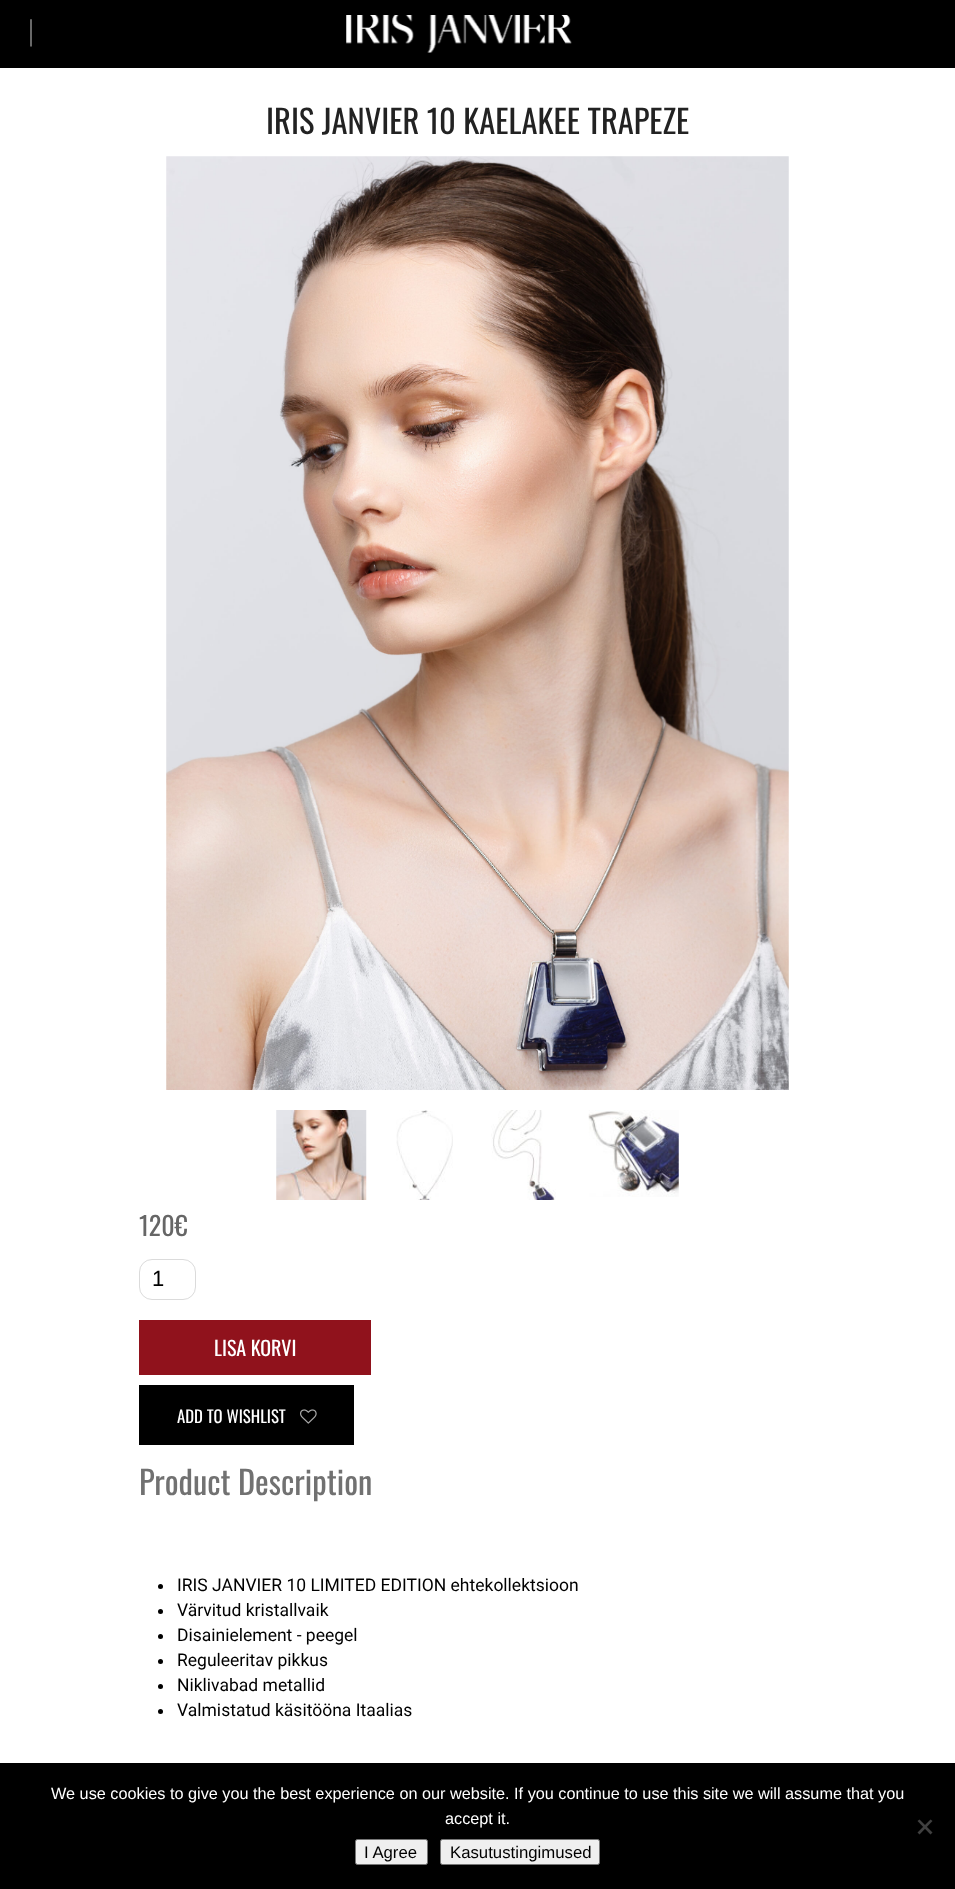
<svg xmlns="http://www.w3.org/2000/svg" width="955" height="1889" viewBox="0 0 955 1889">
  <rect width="100%" height="100%" fill="rgb(255,255,255)"/>
  <rect x="0" y="0" width="955" height="68" fill="rgb(0,0,0)"/>
  <text x="28" y="40" font-family="Liberation Serif" font-size="30" fill="rgb(136,136,136)">|</text>
  <image x="346" y="15" width="226" height="38" href="pic1.png"/>
  <text x="266" y="134" font-family="Oswald" font-size="32.5" fill="rgb(34,34,34)">IRIS JANVIER 10 KAELAKEE TRAPEZE</text>
  <image x="166" y="156" width="623" height="934" href="pic2.png"/>
  <image x="276" y="1110" width="91" height="90" href="pic3.png"/>
  <image x="396" y="1110" width="57" height="90" href="pic4.png"/>
  <image x="491" y="1110" width="65" height="90" href="pic5.png"/>
  <image x="588" y="1110" width="91" height="87" href="pic6.png"/>
  <text x="139" y="1236" font-family="Oswald" font-size="26" fill="rgb(102,102,102)">120€</text>
  <rect x="139.5" y="1259.5" width="56" height="40" rx="12.5" fill="none" stroke="rgb(219,219,219)"/>
  <text x="152" y="1286" font-family="Liberation Sans" font-size="22" fill="rgb(0,0,0)">1</text>
  <rect x="139" y="1320" width="232" height="55" fill="rgb(144,18,28)"/>
  <text x="214" y="1356" font-family="Oswald" font-size="20" fill="rgb(255,255,255)">LISA KORVI</text>
  <rect x="139" y="1385" width="215" height="60" fill="rgb(0,0,0)"/>
  <text x="177" y="1423" font-family="Oswald" font-size="16.75" fill="rgb(255,255,255)">ADD TO WISHLIST</text>
  <image x="300" y="1409" width="17" height="15" href="pic7.png"/>
  <text x="139" y="1495" font-family="Oswald" font-size="32.5" fill="rgb(113,113,113)">Product Description</text>
  <circle cx="160.5" cy="1586.5" r="2.5" fill="rgb(0,0,0)"/>
  <text x="177" y="1591" font-family="Roboto" font-size="17.5" fill="rgb(0,0,0)">IRIS JANVIER 10 LIMITED EDITION ehtekollektsioon</text>
  <circle cx="160.5" cy="1611.5" r="2.5" fill="rgb(0,0,0)"/>
  <text x="177" y="1616" font-family="Roboto" font-size="17.5" fill="rgb(0,0,0)">Värvitud kristallvaik</text>
  <circle cx="160.5" cy="1636.5" r="2.5" fill="rgb(0,0,0)"/>
  <text x="177" y="1641" font-family="Roboto" font-size="17.5" fill="rgb(0,0,0)">Disainielement - peegel</text>
  <circle cx="160.5" cy="1661.5" r="2.5" fill="rgb(0,0,0)"/>
  <text x="177" y="1666" font-family="Roboto" font-size="17.5" fill="rgb(0,0,0)">Reguleeritav pikkus</text>
  <circle cx="160.5" cy="1686.5" r="2.5" fill="rgb(0,0,0)"/>
  <text x="177" y="1691" font-family="Roboto" font-size="17.5" fill="rgb(0,0,0)">Niklivabad metallid</text>
  <circle cx="160.5" cy="1711.5" r="2.5" fill="rgb(0,0,0)"/>
  <text x="177" y="1716" font-family="Roboto" font-size="17.5" fill="rgb(0,0,0)">Valmistatud käsitööna Itaalias</text>
  <rect x="0" y="1763" width="955" height="126" fill="rgb(0,0,0)"/>
  <g font-family="Liberation Sans" font-size="16.25" fill="rgb(255,255,255)">
    <text x="51" y="1799">We use cookies to give you the best experience on our website. If you continue to use this site we will assume that you</text>
    <text x="445" y="1824">accept it.</text>
  </g>
  <path d="M930.5 1819.5L932.5 1821L919.5 1834.5L917.5 1832.5Z" fill="rgb(64,64,64)"/>
  <path d="M917.5 1821L919.5 1819.5L932.5 1832.5L930.5 1834.5Z" fill="rgb(64,64,64)"/>
  <rect x="355.5" y="1839.5" width="72" height="25" rx="2" fill="rgb(239,239,239)" stroke="rgb(118,118,118)"/>
  <text x="364" y="1858" font-family="Liberation Sans" font-size="16.75" fill="rgb(0,0,0)">I Agree</text>
  <rect x="440.5" y="1839.5" width="159" height="25" rx="2" fill="rgb(239,239,239)" stroke="rgb(118,118,118)"/>
  <text x="450" y="1858" font-family="Liberation Sans" font-size="16.75" fill="rgb(0,0,0)">Kasutustingimused</text>
</svg>
